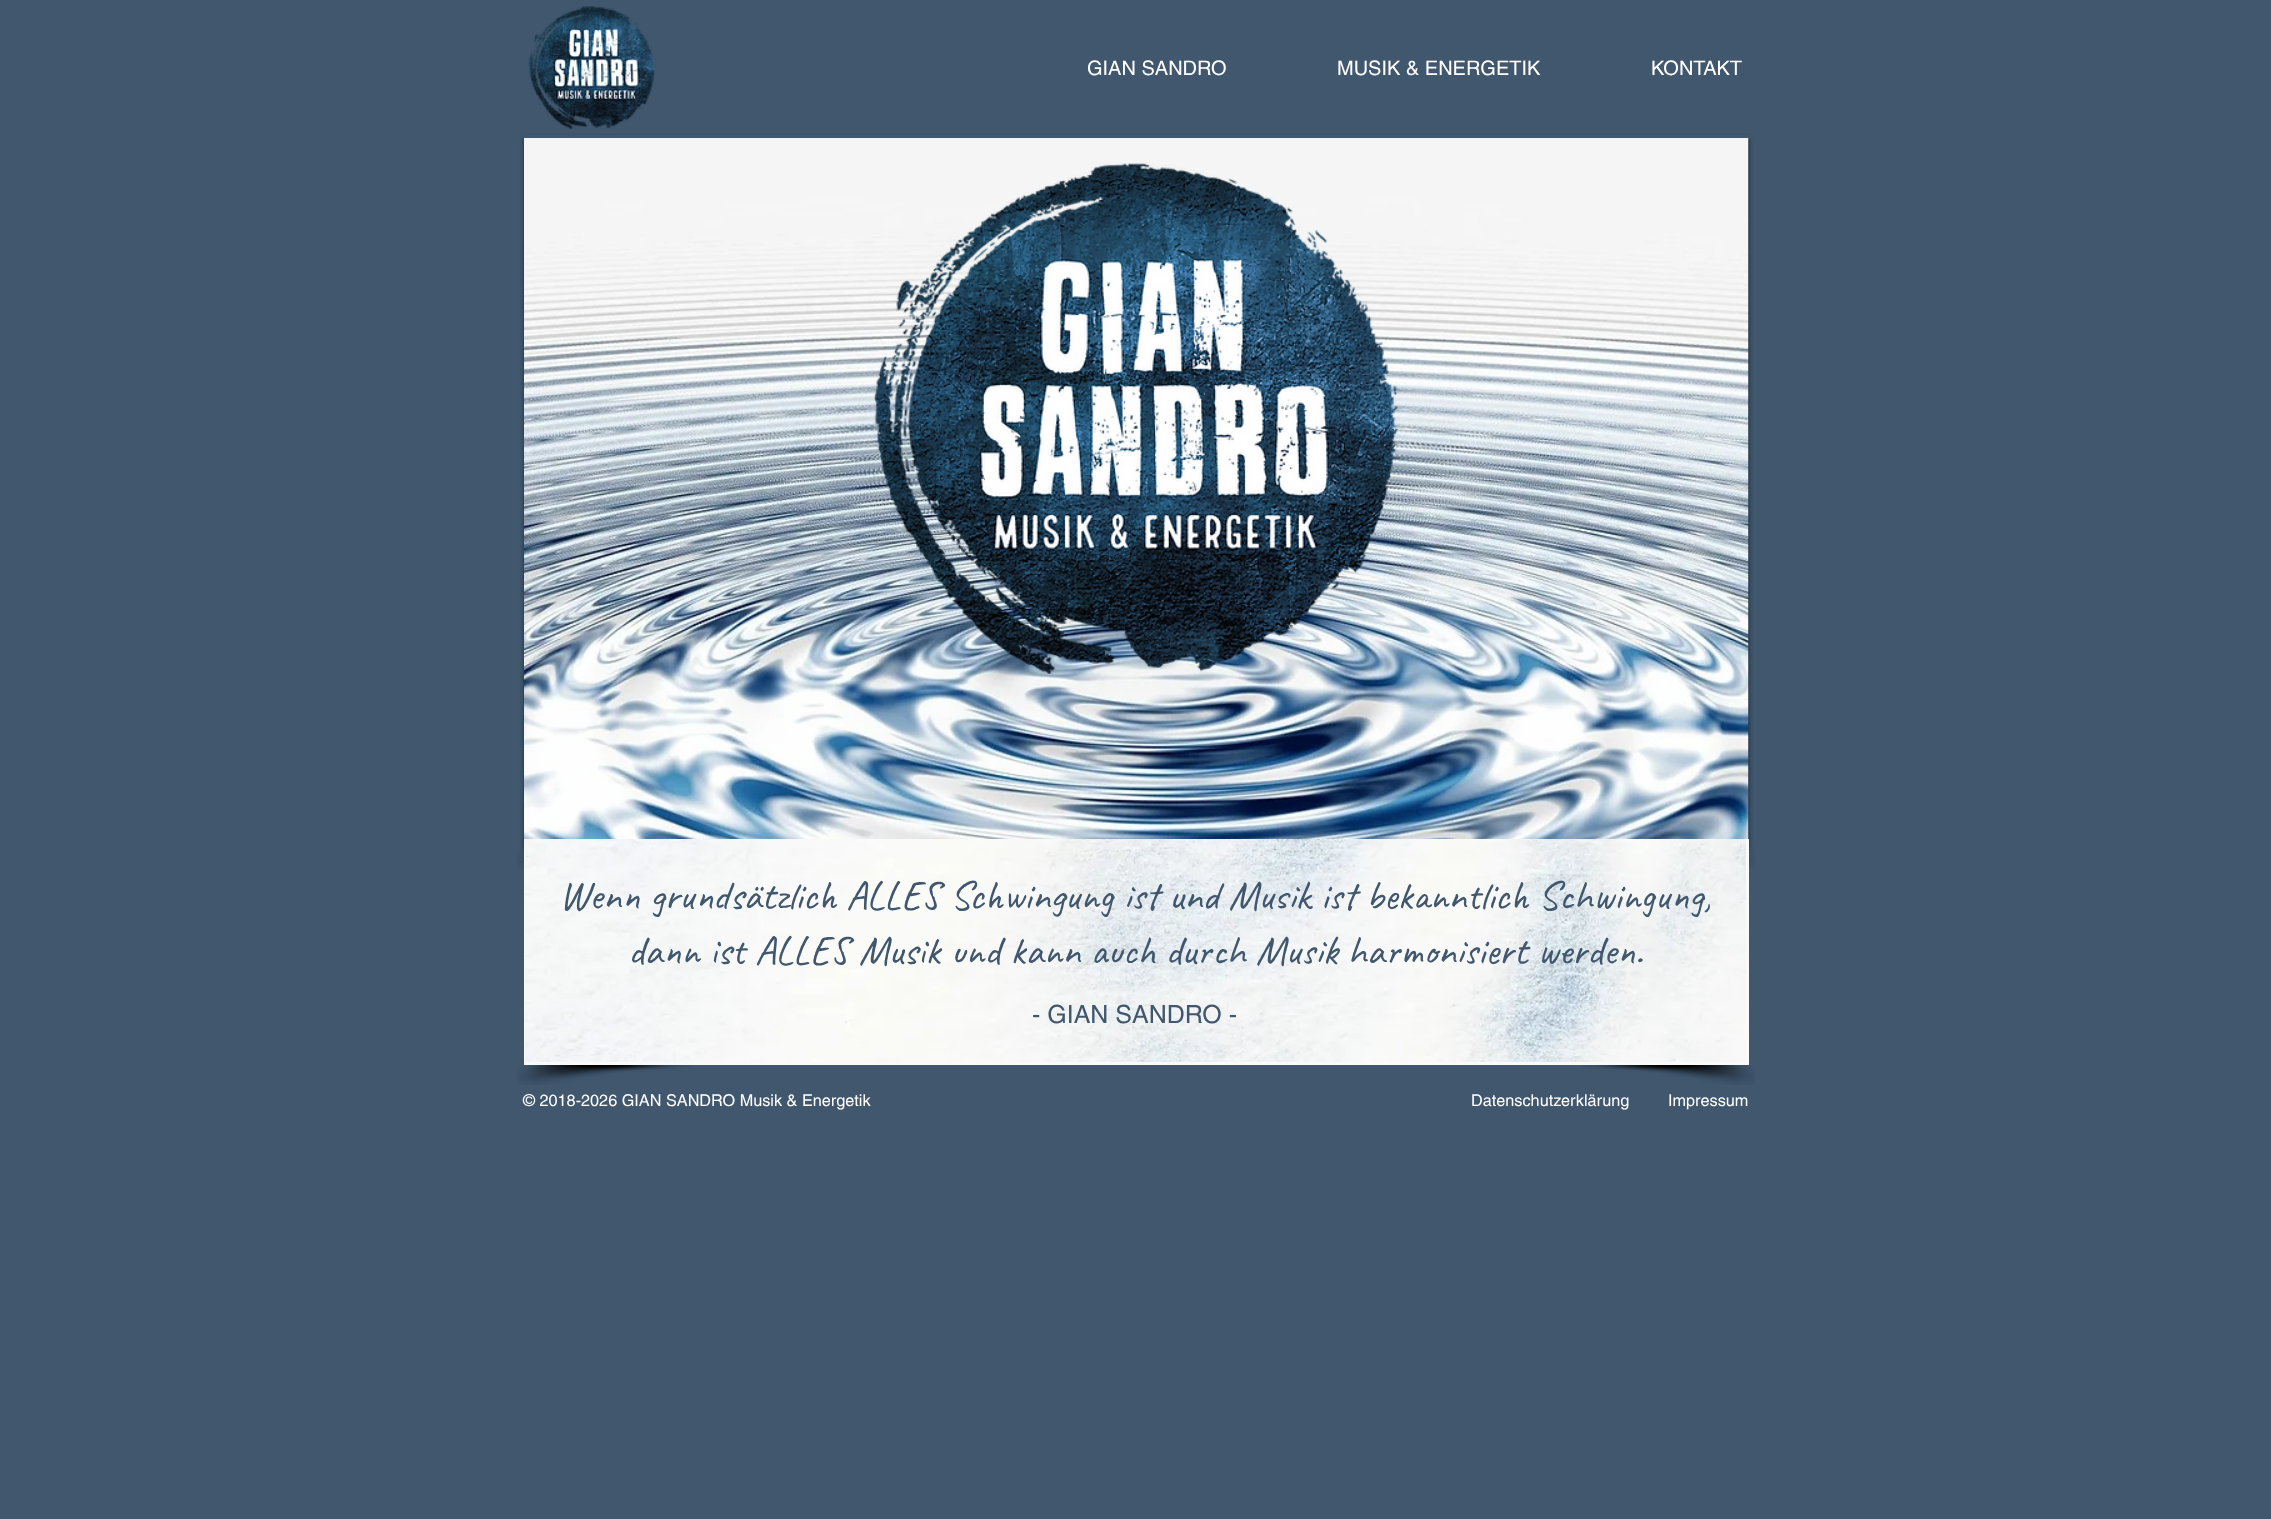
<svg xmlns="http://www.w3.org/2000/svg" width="2271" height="1519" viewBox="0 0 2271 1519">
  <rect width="100%" height="100%" fill="rgb(64,87,110)"/>
  <image x="528" y="6" width="127" height="123" href="pic1.png"/>
  <g font-family="helvetica" font-size="20" fill="rgb(255,255,255)">
    <text x="1087" y="75">GIAN SANDRO</text>
    <text x="1337" y="75">MUSIK &amp; ENERGETIK</text>
    <text x="1651" y="75">KONTAKT</text>
  </g>
  <rect x="524" y="138" width="1225" height="711" fill="rgba(0,0,0,0.5)" filter="blur(2px)"/>
  <rect x="522" y="135" width="1229" height="3" fill="rgb(64,87,110)"/>
  <image x="524" y="138" width="1225" height="701" href="pic2.png"/>
  <image x="517" y="849" width="7" height="20" href="pic3.png"/>
  <image x="1749" y="849" width="6" height="20" href="pic4.png"/>
  <image x="873" y="163" width="525" height="511" href="pic5.png"/>
  <rect x="524" y="839" width="1225" height="226" fill="rgb(250,250,250)"/>
  <image x="525" y="839" width="1221" height="223" href="pic6.png"/>
  <g font-family="Caveat" font-size="41.25" fill="rgb(64,87,110)">
    <text x="559" y="909">Wenn grundsätzlich ALLES Schwingung ist und Musik ist bekanntlich Schwingung,</text>
    <text x="628" y="964">dann ist ALLES Musik und kann auch durch Musik harmonisiert werden.</text>
  </g>
  <text x="1032" y="1023" font-family="helvetica" font-size="25" fill="rgb(64,87,110)">- GIAN SANDRO -</text>
  <image x="517" y="1065" width="175" height="20" href="pic7.png"/>
  <image x="1581" y="1065" width="174" height="20" href="pic8.png"/>
  <g font-family="helvetica" font-size="16.25" fill="rgb(255,255,255)">
    <text x="523" y="1106">© 2018-2026 GIAN SANDRO Musik &amp; Energetik</text>
    <text x="1471" y="1106">Datenschutzerklärung</text>
    <text x="1668" y="1106">Impressum</text>
  </g>
</svg>
